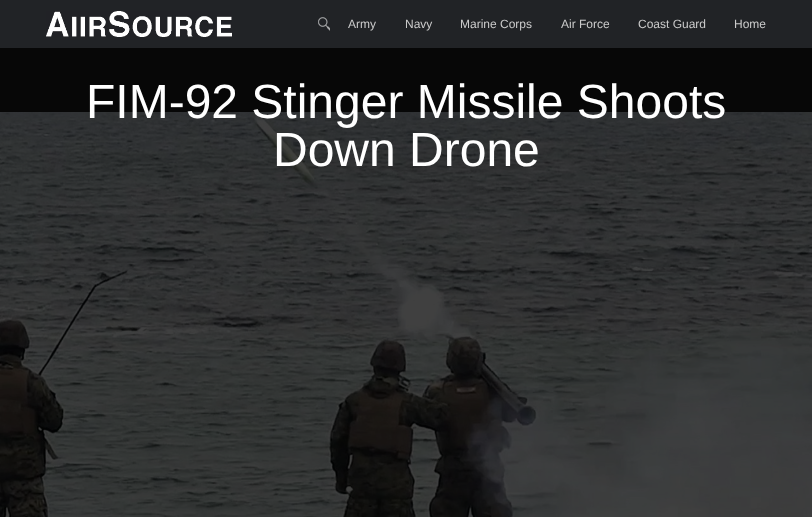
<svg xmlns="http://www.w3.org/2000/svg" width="812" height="517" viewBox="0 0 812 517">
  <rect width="100%" height="100%" fill="rgb(33,35,38)"/>
  <image x="46" y="11" width="186" height="26" href="pic1.png"/>
  <image x="318" y="17" width="12" height="14" href="pic2.png"/>
  <g font-family="Liberation Sans" font-size="12" fill="rgb(203,203,203)">
    <text x="348" y="28">Army</text>
    <text x="405" y="28">Navy</text>
    <text x="460" y="28">Marine Corps</text>
    <text x="561" y="28">Air Force</text>
    <text x="638" y="28">Coast Guard</text>
    <text x="734" y="28">Home</text>
  </g>
  <rect x="0" y="48" width="812" height="64" fill="rgb(7,7,7)"/>
  <image x="0" y="112" width="812" height="405" href="pic3.png"/>
  <g font-family="Liberation Sans" font-size="48" fill="rgb(255,255,255)">
    <text x="86" y="118">FIM-92 Stinger Missile Shoots</text>
    <text x="273" y="166">Down Drone</text>
  </g>
</svg>
